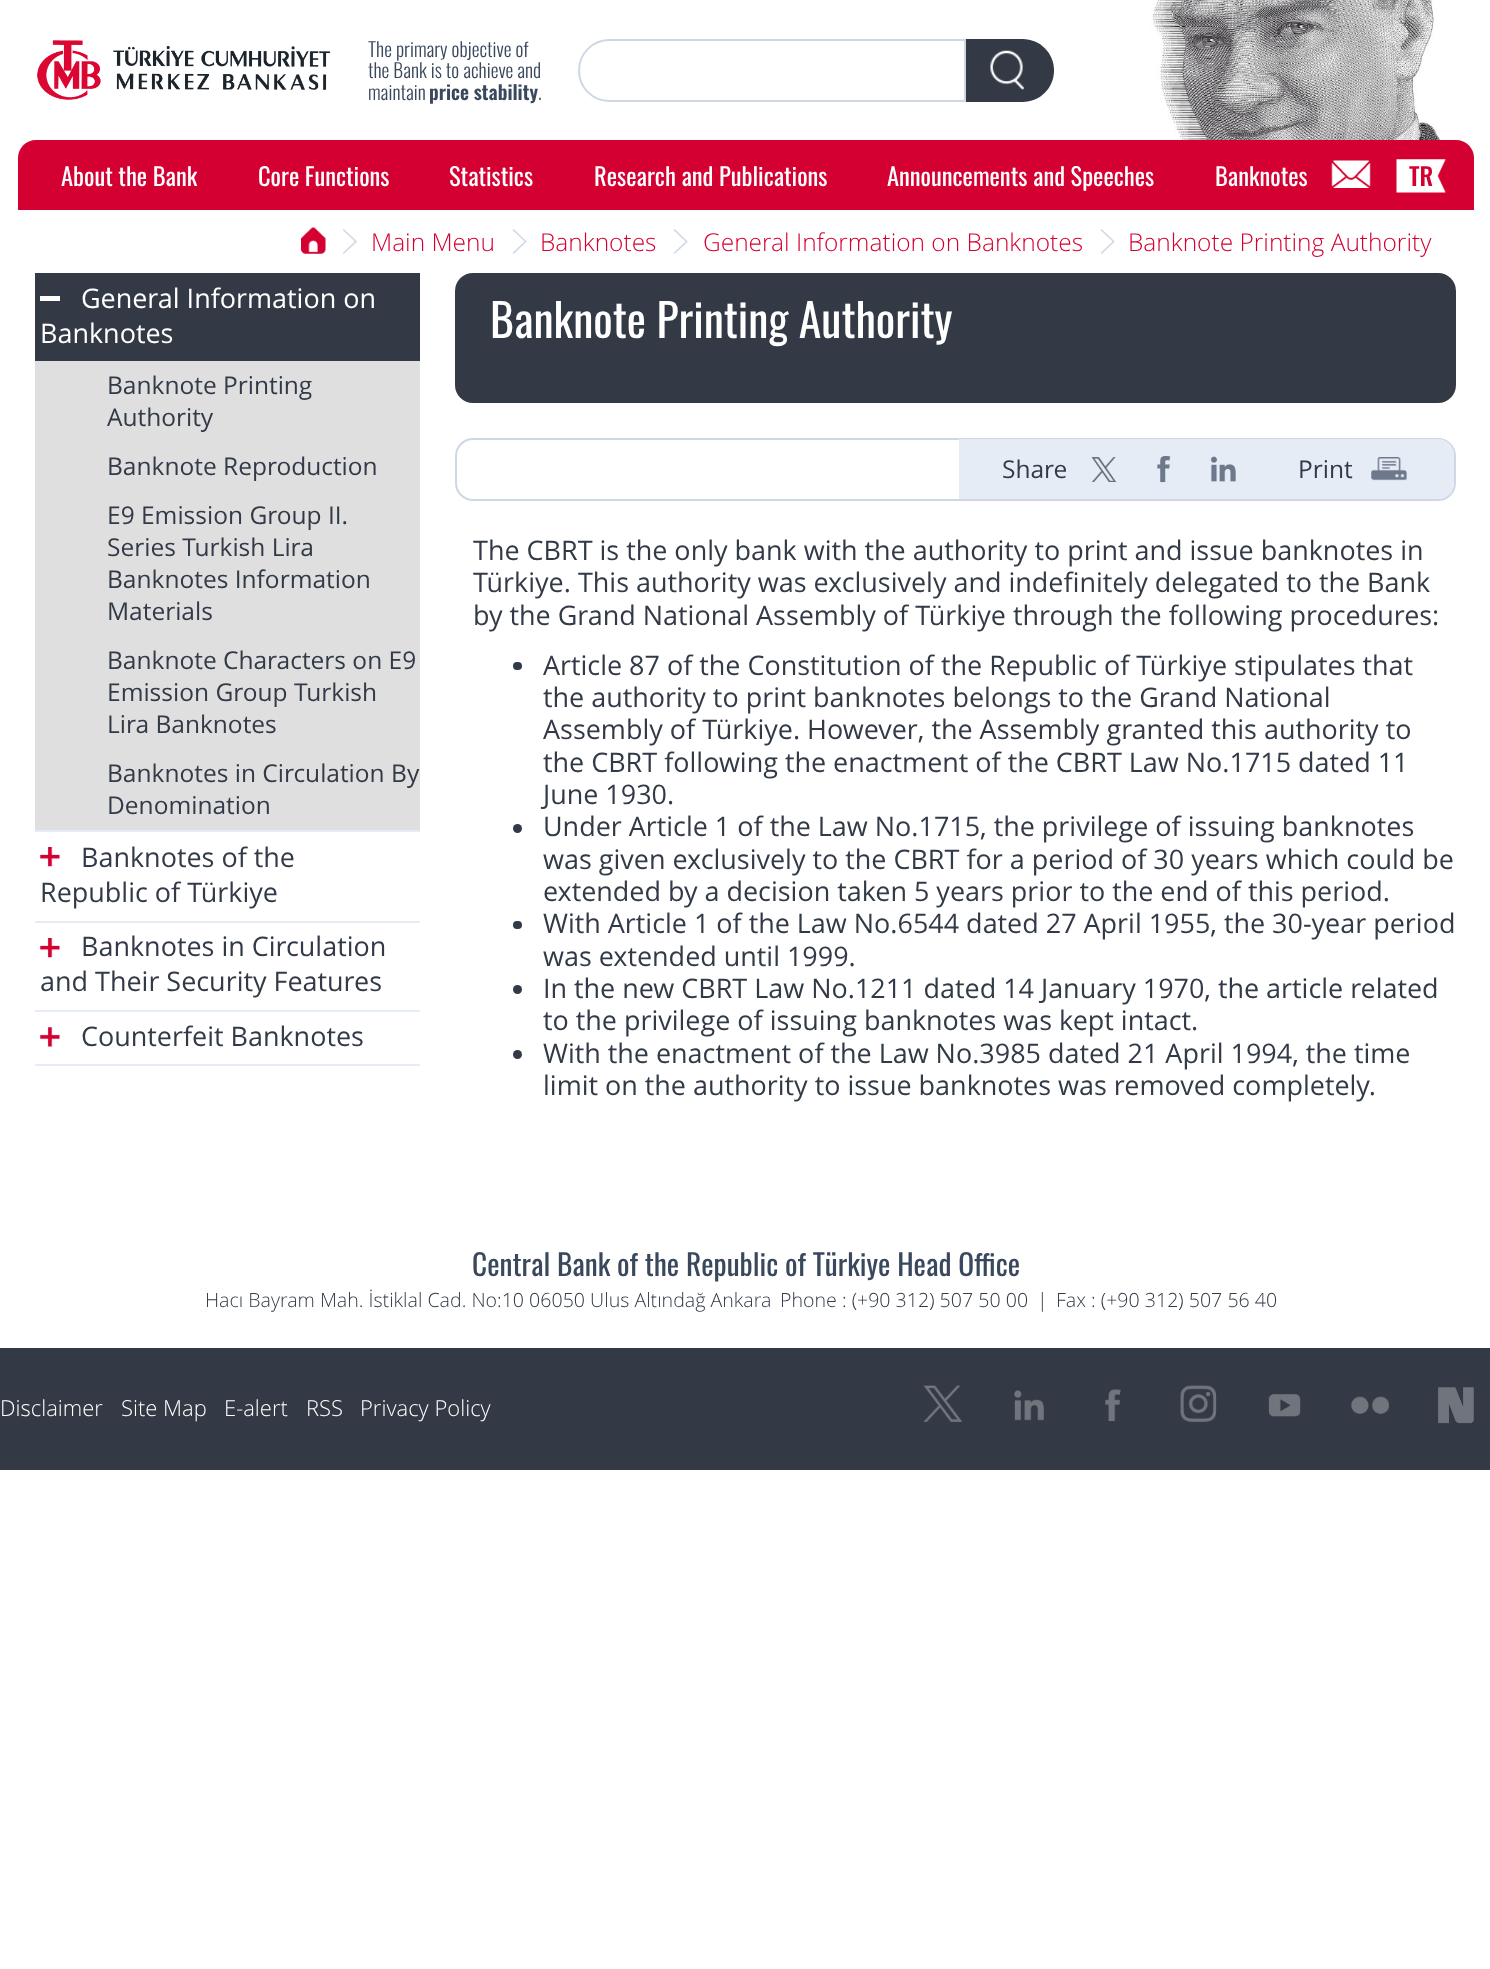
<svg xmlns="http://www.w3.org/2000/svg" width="1490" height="1969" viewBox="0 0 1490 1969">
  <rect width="100%" height="100%" fill="rgb(255,255,255)"/>
  <image x="37" y="40" width="294" height="60" href="pic1.png"/>
  <g font-family="Oswald" font-size="19.6" font-weight="300" fill="rgb(58,72,94)">
    <text>
      <tspan x="368" y="57">The primary objective of</tspan>
      <tspan x="368" y="78">the Bank is to achieve and</tspan>
      <tspan x="368" y="100">maintain</tspan>
    </text>
  </g>
  <text x="429" y="100" font-family="Oswald" font-size="19.6" font-weight="600" fill="rgb(58,72,94)">price stability</text>
  <text x="538" y="100" font-family="Oswald" font-size="19.6" font-weight="300" fill="rgb(58,72,94)">.</text>
  <path d="M609.5 40H965V101H609.5C592.5 101 579 87.5 579 70.5C579 53.5 592.5 40 609.5 40Z" fill="none" stroke="rgb(207,215,229)" stroke-width="2"/>
  <path d="M966 39H1022.5C1040 39 1054 53 1054 70.5C1054 88 1040 102 1022.5 102H966Z" fill="rgb(51,57,69)"/>
  <image x="990" y="50" width="34" height="40" href="pic2.png"/>
  <image x="1150" y="0" width="291" height="140" href="pic3.png"/>
  <path d="M36 140H1456C1466 140 1474 148 1474 158V210H18V158C18 148 26 140 36 140Z" fill="rgb(213,0,50)"/>
  <g font-family="Oswald" font-size="24.5" fill="rgb(255,255,255)">
    <text x="61" y="186">About the Bank</text>
    <text x="258" y="186">Core Functions</text>
    <text x="449" y="186">Statistics</text>
    <text x="594" y="186">Research and Publications</text>
    <text x="887" y="186">Announcements and Speeches</text>
    <text x="1215" y="186">Banknotes</text>
  </g>
  <image x="1331" y="160" width="40" height="28" href="pic4.png"/>
  <image x="1396" y="159" width="50" height="34" href="pic5.png"/>
  <text x="1409" y="186" font-family="Oswald" font-size="24.5" font-weight="500" fill="rgb(213,0,50)">TR</text>
  <image x="301" y="227" width="25" height="27" href="pic6.png"/>
  <image x="343" y="229" width="14" height="25" href="pic7.png"/>
  <text x="371" y="251" font-family="Open Sans" font-size="24.5" font-weight="300" fill="rgb(213,0,50)">Main Menu</text>
  <image x="512" y="229" width="15" height="25" href="pic8.png"/>
  <text x="540" y="251" font-family="Open Sans" font-size="24.5" font-weight="300" fill="rgb(213,0,50)">Banknotes</text>
  <image x="673" y="229" width="15" height="25" href="pic9.png"/>
  <text x="703" y="251" font-family="Open Sans" font-size="24.5" font-weight="300" fill="rgb(213,0,50)">General Information on Banknotes</text>
  <image x="1100" y="229" width="15" height="25" href="pic9.png"/>
  <text x="1128" y="251" font-family="Open Sans" font-size="24.5" font-weight="300" fill="rgb(213,0,50)">Banknote Printing Authority</text>
  <rect x="35" y="830" width="385" height="2" fill="rgb(230,236,245)"/>
  <rect x="35" y="273" width="385" height="88" fill="rgb(51,57,69)"/>
  <rect x="40" y="296" width="20" height="5" fill="rgb(255,255,255)"/>
  <g font-family="Open Sans" font-size="26.95" fill="rgb(255,255,255)">
    <text x="81" y="308">General Information on</text>
    <text x="40" y="343">Banknotes</text>
  </g>
  <rect x="35" y="361" width="385" height="469" fill="rgb(223,223,223)"/>
  <g font-family="Open Sans" font-size="24.5" fill="rgb(50,58,71)">
    <text>
      <tspan x="107" y="394">Banknote Printing</tspan>
      <tspan x="107" y="426">Authority</tspan>
    </text>
    <text x="107" y="475">Banknote Reproduction</text>
    <text>
      <tspan x="107" y="524">E9 Emission Group II.</tspan>
      <tspan x="107" y="556">Series Turkish Lira</tspan>
      <tspan x="107" y="588">Banknotes Information</tspan>
      <tspan x="107" y="620">Materials</tspan>
    </text>
    <text>
      <tspan x="107" y="669">Banknote Characters on E9</tspan>
      <tspan x="107" y="701">Emission Group Turkish</tspan>
      <tspan x="107" y="733">Lira Banknotes</tspan>
    </text>
    <text>
      <tspan x="107" y="782">Banknotes in Circulation By</tspan>
      <tspan x="107" y="814">Denomination</tspan>
    </text>
  </g>
  <rect x="35" y="921" width="385" height="2" fill="rgb(230,236,245)"/>
  <image x="40" y="847" width="20" height="20" href="pic10.png"/>
  <g font-family="Open Sans" font-size="26.95" fill="rgb(50,58,71)">
    <text x="81" y="867">Banknotes of the</text>
    <text x="40" y="902">Republic of Türkiye</text>
  </g>
  <rect x="35" y="1010" width="385" height="2" fill="rgb(230,236,245)"/>
  <image x="40" y="938" width="20" height="20" href="pic10.png"/>
  <g font-family="Open Sans" font-size="26.95" fill="rgb(50,58,71)">
    <text x="81" y="956">Banknotes in Circulation</text>
    <text x="40" y="991">and Their Security Features</text>
  </g>
  <rect x="35" y="1064" width="385" height="2" fill="rgb(230,236,245)"/>
  <image x="40" y="1027" width="20" height="20" href="pic11.png"/>
  <text x="81" y="1046" font-family="Open Sans" font-size="26.95" fill="rgb(50,58,71)">Counterfeit Banknotes</text>
  <rect x="455" y="273" width="1001" height="130" rx="18" fill="rgb(51,57,69)"/>
  <text x="490" y="338" font-family="Oswald" font-size="45.75" fill="rgb(255,255,255)">Banknote Printing Authority</text>
  <rect x="456" y="439" width="999" height="61" rx="17" fill="none" stroke="rgb(207,215,229)" stroke-width="2"/>
  <path d="M959 439H1438C1447 439 1454 446 1454 455V483C1454 492 1447 499 1438 499H959Z" fill="rgb(230,236,245)"/>
  <text x="1002" y="478" font-family="Open Sans" font-size="24.5" fill="rgb(50,58,71)">Share</text>
  <image x="1091" y="457" width="26" height="25" href="pic12.png"/>
  <image x="1157" y="456" width="14" height="27" href="pic13.png"/>
  <image x="1210" y="456" width="26" height="26" href="pic14.png"/>
  <text x="1298" y="478" font-family="Open Sans" font-size="24.5" fill="rgb(50,58,71)">Print</text>
  <image x="1371" y="457" width="36" height="24" href="pic15.png"/>
  <g font-family="Open Sans" font-size="26.95" fill="rgb(50,58,71)">
    <text>
      <tspan x="473" y="560">The CBRT is the only bank with the authority to print and issue banknotes in</tspan>
      <tspan x="473" y="592">Türkiye. This authority was exclusively and indefinitely delegated to the Bank</tspan>
      <tspan x="473" y="625">by the Grand National Assembly of Türkiye through the following procedures:</tspan>
    </text>
  </g>
  <rect x="513" y="662" width="9" height="8" rx="4" fill="rgb(50,58,71)"/>
  <g font-family="Open Sans" font-size="26.95" fill="rgb(50,58,71)">
    <text>
      <tspan x="543" y="675">Article 87 of the Constitution of the Republic of Türkiye stipulates that</tspan>
      <tspan x="543" y="707">the authority to print banknotes belongs to the Grand National</tspan>
      <tspan x="543" y="739">Assembly of Türkiye. However, the Assembly granted this authority to</tspan>
      <tspan x="543" y="772">the CBRT following the enactment of the CBRT Law No.1715 dated 11</tspan>
      <tspan x="543" y="804">June 1930.</tspan>
    </text>
  </g>
  <circle cx="517.5" cy="828.5" r="4.5" fill="rgb(50,58,71)"/>
  <g font-family="Open Sans" font-size="26.95" fill="rgb(50,58,71)">
    <text>
      <tspan x="543" y="836">Under Article 1 of the Law No.1715, the privilege of issuing banknotes</tspan>
      <tspan x="543" y="869">was given exclusively to the CBRT for a period of 30 years which could be</tspan>
      <tspan x="543" y="901">extended by a decision taken 5 years prior to the end of this period.</tspan>
    </text>
  </g>
  <rect x="513" y="921" width="9" height="8" rx="4" fill="rgb(50,58,71)"/>
  <g font-family="Open Sans" font-size="26.95" fill="rgb(50,58,71)">
    <text>
      <tspan x="543" y="933">With Article 1 of the Law No.6544 dated 27 April 1955, the 30-year period</tspan>
      <tspan x="543" y="966">was extended until 1999.</tspan>
    </text>
  </g>
  <circle cx="517.5" cy="989.5" r="4.5" fill="rgb(50,58,71)"/>
  <g font-family="Open Sans" font-size="26.95" fill="rgb(50,58,71)">
    <text>
      <tspan x="543" y="998">In the new CBRT Law No.1211 dated 14 January 1970, the article related</tspan>
      <tspan x="543" y="1030">to the privilege of issuing banknotes was kept intact.</tspan>
    </text>
  </g>
  <circle cx="517.5" cy="1054.5" r="4.5" fill="rgb(50,58,71)"/>
  <g font-family="Open Sans" font-size="26.95" fill="rgb(50,58,71)">
    <text>
      <tspan x="543" y="1063">With the enactment of the Law No.3985 dated 21 April 1994, the time</tspan>
      <tspan x="543" y="1095">limit on the authority to issue banknotes was removed completely.</tspan>
    </text>
  </g>
  <text x="472" y="1276" font-family="Oswald" font-size="29.4" fill="rgb(58,72,94)">Central Bank of the Republic of Türkiye Head Office</text>
  <g font-family="Open Sans" font-size="19.6" font-weight="300" fill="rgb(50,58,71)">
    <text x="205" y="1307">Hacı Bayram Mah. İstiklal Cad. No:10 06050 Ulus Altındağ Ankara</text>
    <text x="780" y="1307">Phone : (+90 312) 507 50 00</text>
    <text x="1037" y="1307">|</text>
    <text x="1056" y="1307">Fax : (+90 312) 507 56 40</text>
  </g>
  <rect x="0" y="1348" width="1490" height="122" fill="rgb(51,57,69)"/>
  <g font-family="Open Sans" font-size="22" font-weight="300" fill="rgb(255,255,255)">
    <text x="0" y="1416">Disclaimer</text>
    <text x="121" y="1416">Site Map</text>
    <text x="224" y="1416">E-alert</text>
    <text x="306" y="1416">RSS</text>
    <text x="360" y="1416">Privacy Policy</text>
  </g>
  <image x="923" y="1385" width="39" height="37" href="pic16.png"/>
  <image x="1014" y="1390" width="30" height="31" href="pic17.png"/>
  <image x="1105" y="1389" width="16" height="32" href="pic18.png"/>
  <image x="1180" y="1385" width="37" height="37" href="pic19.png"/>
  <image x="1268" y="1394" width="33" height="23" href="pic20.png"/>
  <image x="1351" y="1396" width="38" height="18" href="pic21.png"/>
  <image x="1438" y="1387" width="36" height="37" href="pic22.png"/>
</svg>
